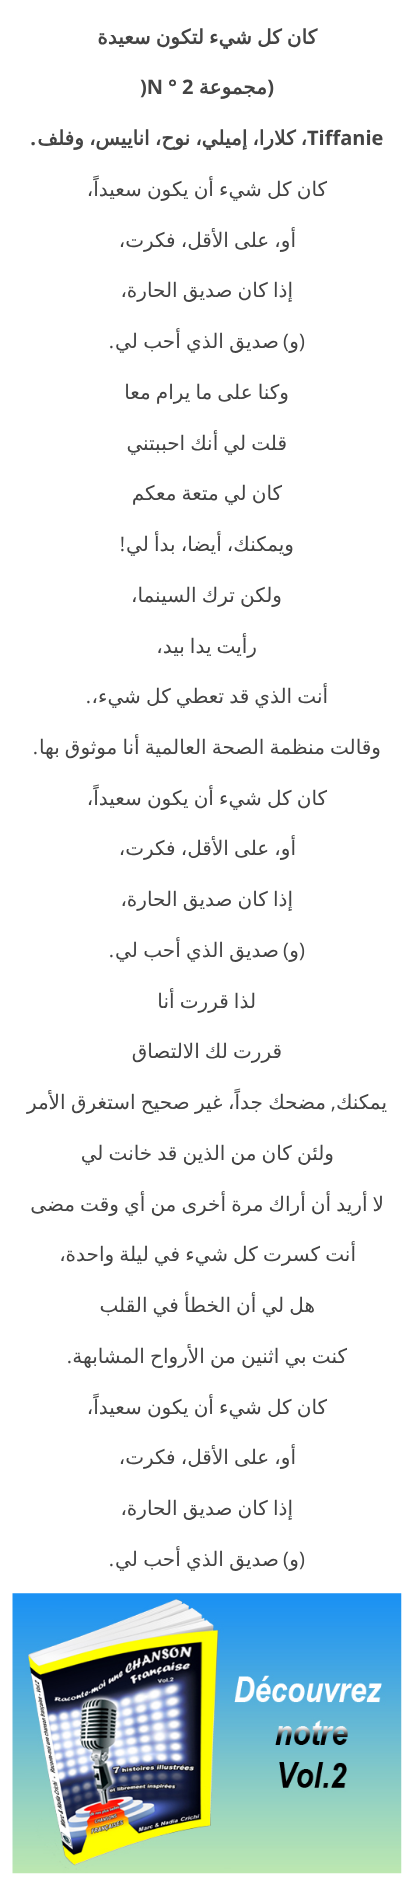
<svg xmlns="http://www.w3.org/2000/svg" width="413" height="1879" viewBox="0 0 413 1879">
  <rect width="100%" height="100%" fill="rgb(255,255,255)"/>
  <text x="317" y="44" word-spacing="-1.25" font-family="DejaVu Sans" font-size="20" font-weight="bold" direction="rtl" fill="rgb(68,68,68)">كان كل شيء لتكون سعيدة</text>
  <text x="274" y="94" font-family="Open Sans" font-size="20" font-weight="bold" direction="rtl" fill="rgb(68,68,68)">(</text>
  <text x="267" y="94" font-family="DejaVu Sans" font-size="20" font-weight="bold" direction="rtl" fill="rgb(68,68,68)">مجموعة</text>
  <text x="140" y="94" font-family="Open Sans" font-size="20" font-weight="bold" fill="rgb(68,68,68)">)N ° 2</text>
  <text x="307" y="145" word-spacing="-1.25" font-family="DejaVu Sans" font-size="20" font-weight="bold" direction="rtl" fill="rgb(68,68,68)">، كلارا، إميلي، نوح، اناييس، وفلف</text>
  <text x="307" y="145" font-family="Open Sans" font-size="20" font-weight="bold" fill="rgb(68,68,68)">Tiffanie</text>
  <text x="36" y="145" font-family="Open Sans" font-size="20" font-weight="bold" direction="rtl" fill="rgb(68,68,68)">.</text>
  <g font-family="DejaVu Sans" font-size="20" direction="rtl" fill="rgb(68,68,68)">
    <text x="327" y="196" word-spacing="-1.25">كان كل شيء أن يكون سعيداً،</text>
    <text x="296" y="247" word-spacing="-1.25">أو، على الأقل، فكرت،</text>
    <text x="293" y="297" word-spacing="-1.25">إذا كان صديق الحارة،</text>
  </g>
  <g font-family="Open Sans" font-size="20" direction="rtl" fill="rgb(68,68,68)">
    <text x="305" y="348">(</text>
    <text x="289" y="348">)</text>
  </g>
  <g font-family="DejaVu Sans" font-size="20" direction="rtl" fill="rgb(68,68,68)">
    <text x="299" y="348">و</text>
    <text x="279" y="348" word-spacing="-1">صديق الذي أحب لي</text>
  </g>
  <text x="114" y="348" font-family="Open Sans" font-size="20" direction="rtl" fill="rgb(68,68,68)">.</text>
  <g font-family="DejaVu Sans" font-size="20" direction="rtl" fill="rgb(68,68,68)">
    <text x="289" y="399" word-spacing="-1.25">وكنا على ما يرام معا</text>
    <text x="287" y="450" word-spacing="-1.25">قلت لي أنك احببتني</text>
    <text x="282" y="500" word-spacing="-1.25">كان لي متعة معكم</text>
    <text x="294" y="551" word-spacing="-1.25">ويمكنك، أيضا، بدأ لي</text>
  </g>
  <text x="125" y="551" font-family="Open Sans" font-size="20" direction="rtl" fill="rgb(68,68,68)">!</text>
  <g font-family="DejaVu Sans" font-size="20" direction="rtl" fill="rgb(68,68,68)">
    <text x="282" y="602" word-spacing="-1.25">ولكن ترك السينما،</text>
    <text x="257" y="653" word-spacing="-1.25">رأيت يدا بيد،</text>
    <text x="328" y="703" word-spacing="-1.25">أنت الذي قد تعطي كل شيء،</text>
  </g>
  <text x="91" y="703" font-family="Open Sans" font-size="20" direction="rtl" fill="rgb(68,68,68)">.</text>
  <text x="381" y="754" word-spacing="-1.25" font-family="DejaVu Sans" font-size="20" direction="rtl" fill="rgb(68,68,68)">وقالت منظمة الصحة العالمية أنا موثوق بها</text>
  <text x="38" y="754" font-family="Open Sans" font-size="20" direction="rtl" fill="rgb(68,68,68)">.</text>
  <g font-family="DejaVu Sans" font-size="20" direction="rtl" fill="rgb(68,68,68)">
    <text x="327" y="805" word-spacing="-1.25">كان كل شيء أن يكون سعيداً،</text>
    <text x="296" y="855" word-spacing="-1.25">أو، على الأقل، فكرت،</text>
    <text x="293" y="906" word-spacing="-1.25">إذا كان صديق الحارة،</text>
  </g>
  <g font-family="Open Sans" font-size="20" direction="rtl" fill="rgb(68,68,68)">
    <text x="305" y="957">(</text>
    <text x="289" y="957">)</text>
  </g>
  <g font-family="DejaVu Sans" font-size="20" direction="rtl" fill="rgb(68,68,68)">
    <text x="299" y="957">و</text>
    <text x="279" y="957" word-spacing="-1">صديق الذي أحب لي</text>
  </g>
  <text x="114" y="957" font-family="Open Sans" font-size="20" direction="rtl" fill="rgb(68,68,68)">.</text>
  <g font-family="DejaVu Sans" font-size="20" direction="rtl" fill="rgb(68,68,68)">
    <text x="256" y="1008" word-spacing="-1.25">لذا قررت أنا</text>
    <text x="282" y="1058" word-spacing="-1.25">قررت لك الالتصاق</text>
    <text x="387" y="1109">يمكنك</text>
  </g>
  <text x="336" y="1109" font-family="Open Sans" font-size="20" direction="rtl" fill="rgb(68,68,68)">,</text>
  <g font-family="DejaVu Sans" font-size="20" direction="rtl" fill="rgb(68,68,68)">
    <text x="326" y="1109" word-spacing="-1">مضحك جداً، غير صحيح استغرق الأمر</text>
    <text x="334" y="1160" word-spacing="-1.25">ولئن كان من الذين قد خانت لي</text>
    <text x="384" y="1211" word-spacing="-1.25">لا أريد أن أراك مرة أخرى من أي وقت مضى</text>
    <text x="356" y="1261" word-spacing="-1.25">أنت كسرت كل شيء في ليلة واحدة،</text>
    <text x="315" y="1312" word-spacing="-1.25">هل لي أن الخطأ في القلب</text>
    <text x="347" y="1363" word-spacing="-1.25">كنت بي اثنين من الأرواح المشابهة</text>
  </g>
  <text x="72" y="1363" font-family="Open Sans" font-size="20" direction="rtl" fill="rgb(68,68,68)">.</text>
  <g font-family="DejaVu Sans" font-size="20" direction="rtl" fill="rgb(68,68,68)">
    <text x="327" y="1414" word-spacing="-1.25">كان كل شيء أن يكون سعيداً،</text>
    <text x="296" y="1464" word-spacing="-1.25">أو، على الأقل، فكرت،</text>
    <text x="293" y="1515" word-spacing="-1.25">إذا كان صديق الحارة،</text>
  </g>
  <g font-family="Open Sans" font-size="20" direction="rtl" fill="rgb(68,68,68)">
    <text x="305" y="1566">(</text>
    <text x="289" y="1566">)</text>
  </g>
  <g font-family="DejaVu Sans" font-size="20" direction="rtl" fill="rgb(68,68,68)">
    <text x="299" y="1566">و</text>
    <text x="279" y="1566" word-spacing="-1">صديق الذي أحب لي</text>
  </g>
  <text x="114" y="1566" font-family="Open Sans" font-size="20" direction="rtl" fill="rgb(68,68,68)">.</text>
  <image x="12" y="1593" width="390" height="281" href="pic1.png"/>
</svg>
